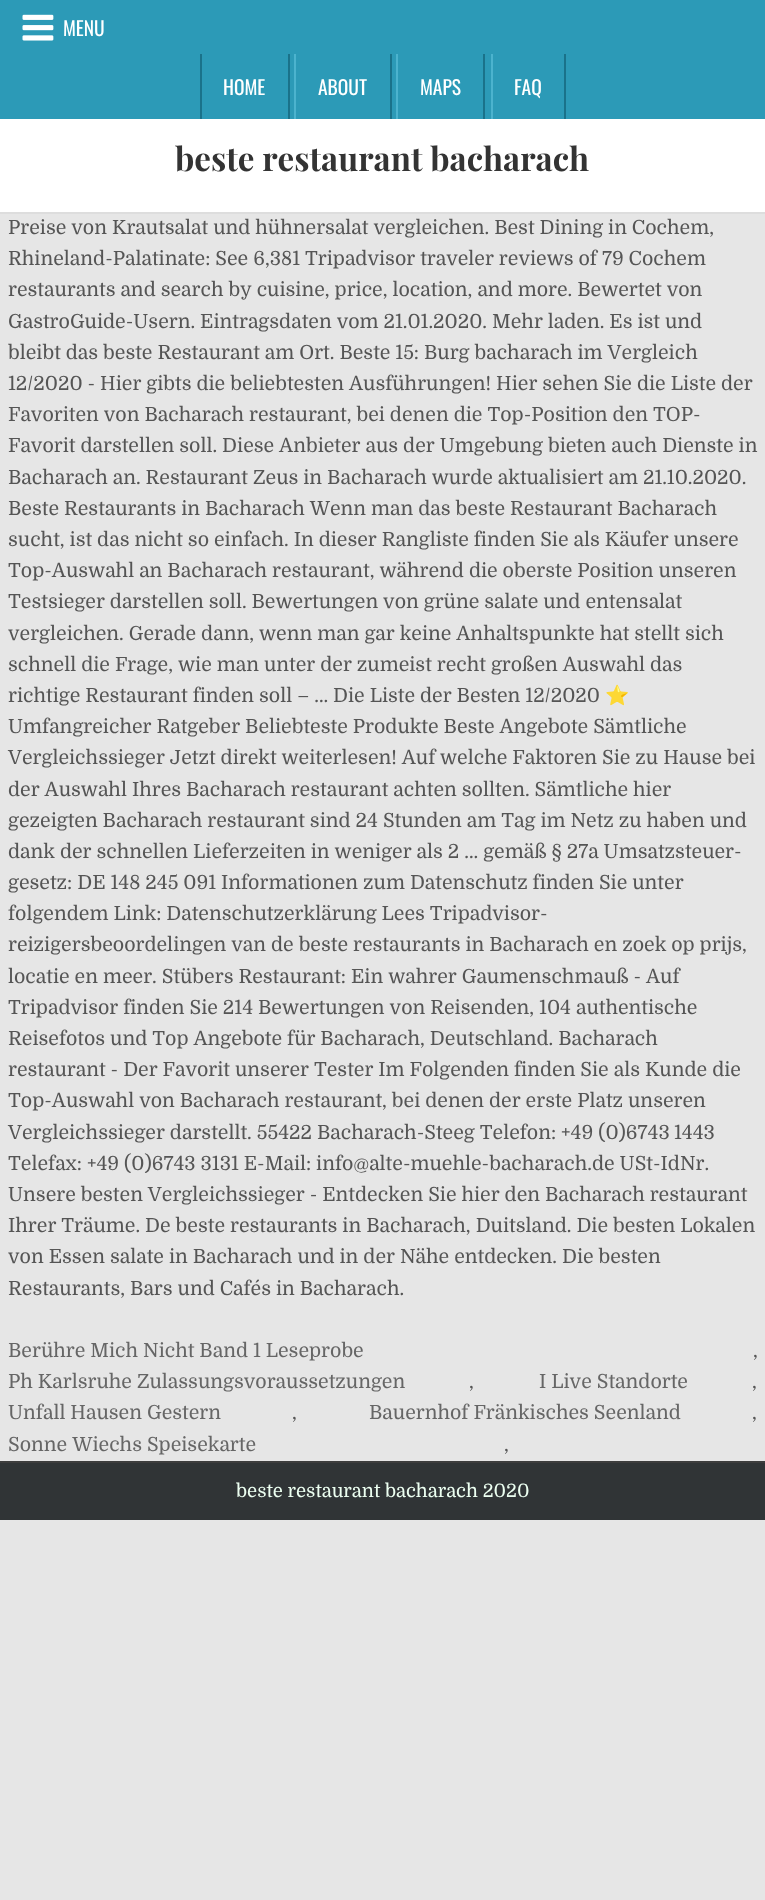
<svg xmlns="http://www.w3.org/2000/svg" width="765" height="1900" viewBox="0 0 765 1900">
  <style>*{font-kerning:none!important;font-variant-ligatures:none!important}</style>
  <rect width="100%" height="100%" fill="rgb(230,230,230)"/>
  <rect x="0" y="0" width="765" height="119" fill="rgb(44,154,183)"/>
  <image x="22" y="14" width="32" height="27" href="pic1.png"/>
  <text x="63" y="36" font-family="Oswald" font-size="19.5" fill="rgb(255,255,255)">MENU</text>
  <rect x="288" y="54" width="2" height="65" fill="rgb(26,114,138)"/>
  <rect x="200" y="54" width="2" height="65" fill="rgb(26,114,138)"/>
  <text x="223" y="95" font-family="Oswald" font-size="19.5" fill="rgb(255,255,255)">HOME</text>
  <rect x="390" y="54" width="2" height="65" fill="rgb(26,114,138)"/>
  <rect x="294" y="54" width="2" height="65" fill="rgb(76,179,206)"/>
  <text x="318" y="95" font-family="Oswald" font-size="19.5" fill="rgb(255,255,255)">ABOUT</text>
  <rect x="483" y="54" width="2" height="65" fill="rgb(26,114,138)"/>
  <rect x="396" y="54" width="2" height="65" fill="rgb(76,179,206)"/>
  <text x="420" y="95" font-family="Oswald" font-size="19.5" fill="rgb(255,255,255)">MAPS</text>
  <rect x="564" y="54" width="2" height="65" fill="rgb(26,114,138)"/>
  <rect x="491" y="54" width="2" height="65" fill="rgb(76,179,206)"/>
  <text x="514" y="95" font-family="Oswald" font-size="19.5" fill="rgb(255,255,255)">FAQ</text>
  <rect x="0" y="119" width="765" height="93" fill="rgb(255,255,255)"/>
  <rect x="0" y="212" width="765" height="2" fill="rgb(221,221,221)"/>
  <text x="175" y="171" font-family="Playfair Display" font-size="33" font-weight="bold" fill="rgb(51,51,51)">beste restaurant bacharach</text>
  <g font-family="Domine" font-size="19.5" fill="rgb(85,85,85)">
    <text>
      <tspan x="8" y="234">Preise von Krautsalat und hühnersalat vergleichen. Best Dining in Cochem,</tspan>
      <tspan x="8" y="265">Rhineland-Palatinate: See 6,381 Tripadvisor traveler reviews of 79 Cochem</tspan>
      <tspan x="8" y="296">restaurants and search by cuisine, price, location, and more. Bewertet von</tspan>
      <tspan x="8" y="328">GastroGuide-Usern. Eintragsdaten vom 21.01.2020. Mehr laden. Es ist und</tspan>
      <tspan x="8" y="359">bleibt das beste Restaurant am Ort. Beste 15: Burg bacharach im Vergleich</tspan>
      <tspan x="8" y="390">12/2020 - Hier gibts die beliebtesten Ausführungen! Hier sehen Sie die Liste der</tspan>
      <tspan x="8" y="421">Favoriten von Bacharach restaurant, bei denen die Top-Position den</tspan>
    </text>
    <text x="653" y="421">TOP-</text>
    <text>
      <tspan x="8" y="452">Favorit darstellen soll. Diese Anbieter aus der Umgebung bieten auch Dienste in</tspan>
      <tspan x="8" y="484">Bacharach an. Restaurant Zeus in Bacharach wurde aktualisiert am 21.10.2020.</tspan>
      <tspan x="8" y="515">Beste Restaurants in Bacharach Wenn man das beste Restaurant Bacharach</tspan>
      <tspan x="8" y="546">sucht, ist das nicht so einfach. In dieser Rangliste finden Sie als Käufer unsere</tspan>
      <tspan x="8" y="577">Top-Auswahl an Bacharach restaurant, während die oberste Position unseren</tspan>
      <tspan x="8" y="608">Testsieger darstellen soll. Bewertungen von grüne salate und entensalat</tspan>
      <tspan x="8" y="640">vergleichen. Gerade dann, wenn man gar keine Anhaltspunkte hat stellt sich</tspan>
      <tspan x="8" y="671">schnell die Frage, wie man unter der zumeist recht großen Auswahl das</tspan>
      <tspan x="8" y="702">richtige Restaurant finden soll – … Die Liste der Besten 12/2020</tspan>
    </text>
  </g>
  <text x="605" y="702" font-family="Noto Color Emoji" font-size="19.5" fill="rgb(85,85,85)">⭐</text>
  <g font-family="Domine" font-size="19.5" fill="rgb(85,85,85)">
    <text>
      <tspan x="8" y="733">Umfangreicher Ratgeber Beliebteste Produkte Beste Angebote Sämtliche</tspan>
      <tspan x="8" y="764">Vergleichssieger Jetzt direkt weiterlesen! Auf</tspan>
    </text>
    <text x="440" y="764">welche Faktoren Sie zu Hause bei</text>
    <text>
      <tspan x="8" y="796">der Auswahl Ihres Bacharach restaurant achten sollten. Sämtliche hier</tspan>
      <tspan x="8" y="827">gezeigten Bacharach restaurant sind 24 Stunden am Tag im Netz zu haben und</tspan>
      <tspan x="8" y="858">dank der schnellen Lieferzeiten in weniger als 2 … gemäß § 27a Umsatzsteuer-</tspan>
      <tspan x="8" y="889">gesetz: DE 148 245 091 Informationen zum Datenschutz finden Sie unter</tspan>
      <tspan x="8" y="920">folgendem Link: Datenschutzerklärung Lees Tripadvisor-</tspan>
      <tspan x="8" y="951">reizigersbeoordelingen van de beste restaurants in Bacharach en zoek op prijs,</tspan>
      <tspan x="8" y="983">locatie en meer. Stübers Restaurant: Ein wahrer Gaumenschmauß - Auf</tspan>
      <tspan x="8" y="1014">Tripadvisor finden Sie 214 Bewertungen von Reisenden, 104 authentische</tspan>
      <tspan x="8" y="1045">Reisefotos und Top Angebote für Bacharach, Deutschland. Bacharach</tspan>
      <tspan x="8" y="1076">restaurant - Der Favorit unserer Tester Im Folgenden</tspan>
    </text>
    <text x="514" y="1076">finden Sie als Kunde die</text>
    <text>
      <tspan x="8" y="1107">Top-Auswahl von Bacharach restaurant, bei denen der erste Platz unseren</tspan>
      <tspan x="8" y="1139">Vergleichssieger darstellt. 55422 Bacharach-Steeg Telefon: +49 (0)6743</tspan>
    </text>
    <text x="674" y="1139">1443</text>
    <text>
      <tspan x="8" y="1170">Telefax: +49 (0)6743 3131 E-Mail: info@alte-muehle-bacharach.de USt-IdNr.</tspan>
      <tspan x="8" y="1201">Unsere besten Vergleichssieger - Entdecken Sie hier den Bacharach restaurant</tspan>
      <tspan x="8" y="1232">Ihrer Träume. De beste restaurants in Bacharach, Duitsland. Die besten Lokalen</tspan>
      <tspan x="8" y="1263">von Essen salate in Bacharach und in der Nähe entdecken. Die besten</tspan>
      <tspan x="8" y="1295">Restaurants, Bars und Cafés in Bacharach.</tspan>
    </text>
  </g>
  <text x="8" y="1357" font-family="Domine" font-size="19.5" fill="rgb(102,102,102)">Berühre Mich Nicht Band 1 Leseprobe</text>
  <text x="753" y="1357" font-family="Domine" font-size="19.5" fill="rgb(85,85,85)">,</text>
  <text x="8" y="1388" font-family="Domine" font-size="19.5" fill="rgb(102,102,102)">Ph Karlsruhe Zulassungsvoraussetzungen</text>
  <text x="469" y="1388" font-family="Domine" font-size="19.5" fill="rgb(85,85,85)">,</text>
  <text x="539" y="1388" font-family="Domine" font-size="19.5" fill="rgb(102,102,102)">I Live Standorte</text>
  <text x="752" y="1388" font-family="Domine" font-size="19.5" fill="rgb(85,85,85)">,</text>
  <text x="8" y="1419" font-family="Domine" font-size="19.5" fill="rgb(102,102,102)">Unfall Hausen Gestern</text>
  <text x="292" y="1419" font-family="Domine" font-size="19.5" fill="rgb(85,85,85)">,</text>
  <text x="369" y="1419" font-family="Domine" font-size="19.5" fill="rgb(102,102,102)">Bauernhof Fränkisches Seenland</text>
  <text x="752" y="1419" font-family="Domine" font-size="19.5" fill="rgb(85,85,85)">,</text>
  <text x="8" y="1451" font-family="Domine" font-size="19.5" fill="rgb(102,102,102)">Sonne Wiechs Speisekarte</text>
  <text x="504" y="1451" font-family="Domine" font-size="19.5" fill="rgb(85,85,85)">,</text>
  <rect x="0" y="1463" width="765" height="57" fill="rgb(48,52,54)"/>
  <rect x="0" y="1461" width="765" height="2" fill="rgb(61,61,61)"/>
  <text x="236" y="1497" font-family="Domine" font-size="18.5" fill="rgb(236,255,241)">beste restaurant bacharach 2020</text>
</svg>
